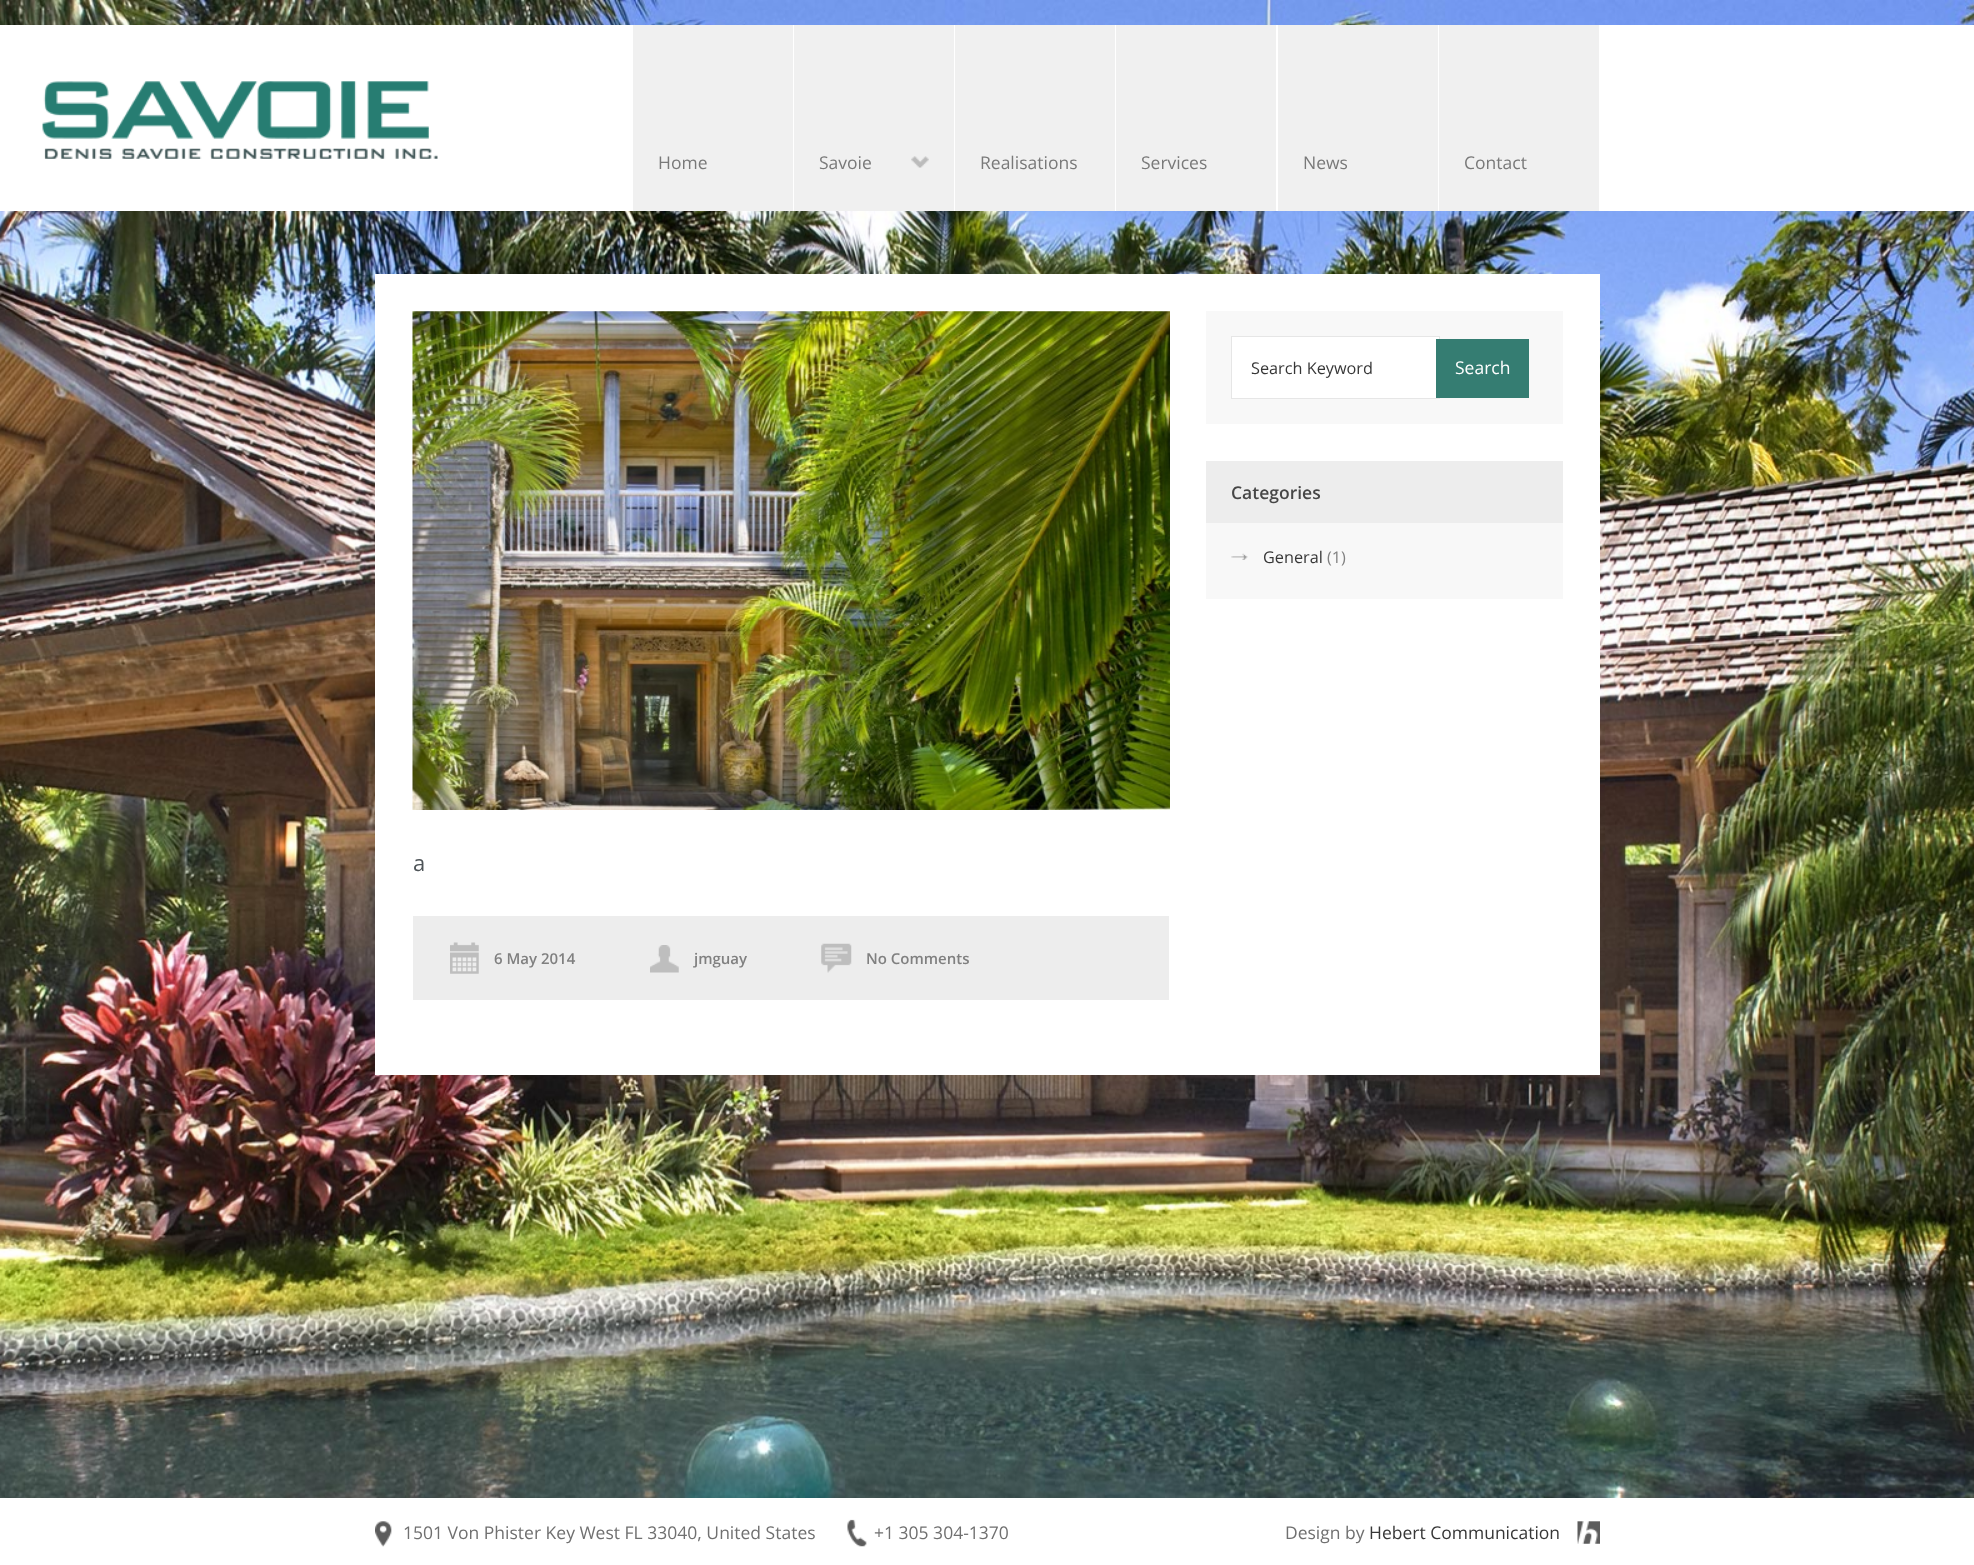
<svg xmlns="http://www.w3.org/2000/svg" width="1974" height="1565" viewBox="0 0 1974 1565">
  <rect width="100%" height="100%" fill="rgb(255,255,255)"/>
  <image x="0" y="0" width="1974" height="1498" href="pic1.png"/>
  <rect x="0" y="25" width="1974" height="186" fill="rgb(255,255,255)"/>
  <image x="42" y="81" width="396" height="78" href="pic2.png"/>
  <rect x="633" y="25" width="160" height="186" fill="rgb(240,240,240)"/>
  <text x="658" y="169" font-family="Open Sans" font-size="17.5" fill="rgb(121,121,121)">Home</text>
  <rect x="794" y="25" width="160" height="186" fill="rgb(240,240,240)"/>
  <text x="819" y="169" font-family="Open Sans" font-size="17.5" fill="rgb(121,121,121)">Savoie</text>
  <image x="911" y="156" width="18" height="12" href="pic3.png"/>
  <rect x="955" y="25" width="160" height="186" fill="rgb(240,240,240)"/>
  <text x="980" y="169" font-family="Open Sans" font-size="17.5" fill="rgb(121,121,121)">Realisations</text>
  <rect x="1116" y="25" width="160" height="186" fill="rgb(240,240,240)"/>
  <text x="1141" y="169" font-family="Open Sans" font-size="17.5" fill="rgb(121,121,121)">Services</text>
  <rect x="1278" y="25" width="160" height="186" fill="rgb(240,240,240)"/>
  <text x="1303" y="169" font-family="Open Sans" font-size="17.5" fill="rgb(121,121,121)">News</text>
  <rect x="1439" y="25" width="160" height="186" fill="rgb(240,240,240)"/>
  <text x="1464" y="169" font-family="Open Sans" font-size="17.5" fill="rgb(121,121,121)">Contact</text>
  <rect x="375" y="274" width="1225" height="801" fill="rgb(255,255,255)"/>
  <rect x="1206" y="311" width="357" height="113" fill="rgb(248,248,248)"/>
  <rect x="1231.5" y="336.5" width="208" height="62" fill="rgb(255,255,255)" stroke="rgb(230,230,230)"/>
  <text x="1251" y="374" font-family="Open Sans" font-size="16.25" fill="rgb(55,55,55)">Search Keyword</text>
  <rect x="1436" y="339" width="93" height="59" fill="rgb(53,125,114)"/>
  <text x="1455" y="374" font-family="Open Sans" font-size="17.5" fill="rgb(255,255,255)">Search</text>
  <rect x="1206" y="523" width="357" height="76" fill="rgb(248,248,248)"/>
  <rect x="1206" y="461" width="357" height="62" fill="rgb(237,237,237)"/>
  <text x="1231" y="499" font-family="Open Sans" font-size="17.5" font-weight="600" fill="rgb(71,71,71)">Categories</text>
  <image x="1231" y="553" width="17" height="7" href="pic4.png"/>
  <text x="1263" y="563" font-family="Open Sans" font-size="16.25" fill="rgb(55,55,55)">General</text>
  <text x="1327" y="563" font-family="Open Sans" font-size="16.25" fill="rgb(128,128,128)">(1)</text>
  <image x="412" y="311" width="758" height="499" href="pic5.png"/>
  <text x="413" y="871" font-family="Open Sans" font-size="22" fill="rgb(78,84,88)">a</text>
  <rect x="413" y="916" width="756" height="84" fill="rgb(237,237,237)"/>
  <image x="450" y="942" width="29" height="32" href="pic6.png"/>
  <text x="494" y="964" font-family="Open Sans" font-size="15" font-weight="600" fill="rgb(128,128,128)">6 May 2014</text>
  <image x="650" y="945" width="29" height="28" href="pic7.png"/>
  <text x="694" y="964" font-family="Open Sans" font-size="15" font-weight="600" fill="rgb(128,128,128)">jmguay</text>
  <image x="821" y="943" width="31" height="30" href="pic8.png"/>
  <text x="866" y="964" font-family="Open Sans" font-size="15" font-weight="600" fill="rgb(128,128,128)">No Comments</text>
  <image x="375" y="1521" width="17" height="26" href="pic9.png"/>
  <text x="403" y="1539" font-family="Open Sans" font-size="17.5" fill="rgb(112,112,112)">1501 Von Phister Key West FL 33040, United States</text>
  <image x="847" y="1519" width="20" height="28" href="pic10.png"/>
  <g font-family="Open Sans" font-size="17.5" fill="rgb(112,112,112)">
    <text x="874" y="1539">+1 305 304-1370</text>
    <text x="1285" y="1539">Design by</text>
  </g>
  <text x="1369" y="1539" font-family="Open Sans" font-size="17.5" fill="rgb(55,55,55)">Hebert Communication</text>
  <image x="1577" y="1521" width="23" height="23" href="pic11.png"/>
</svg>
